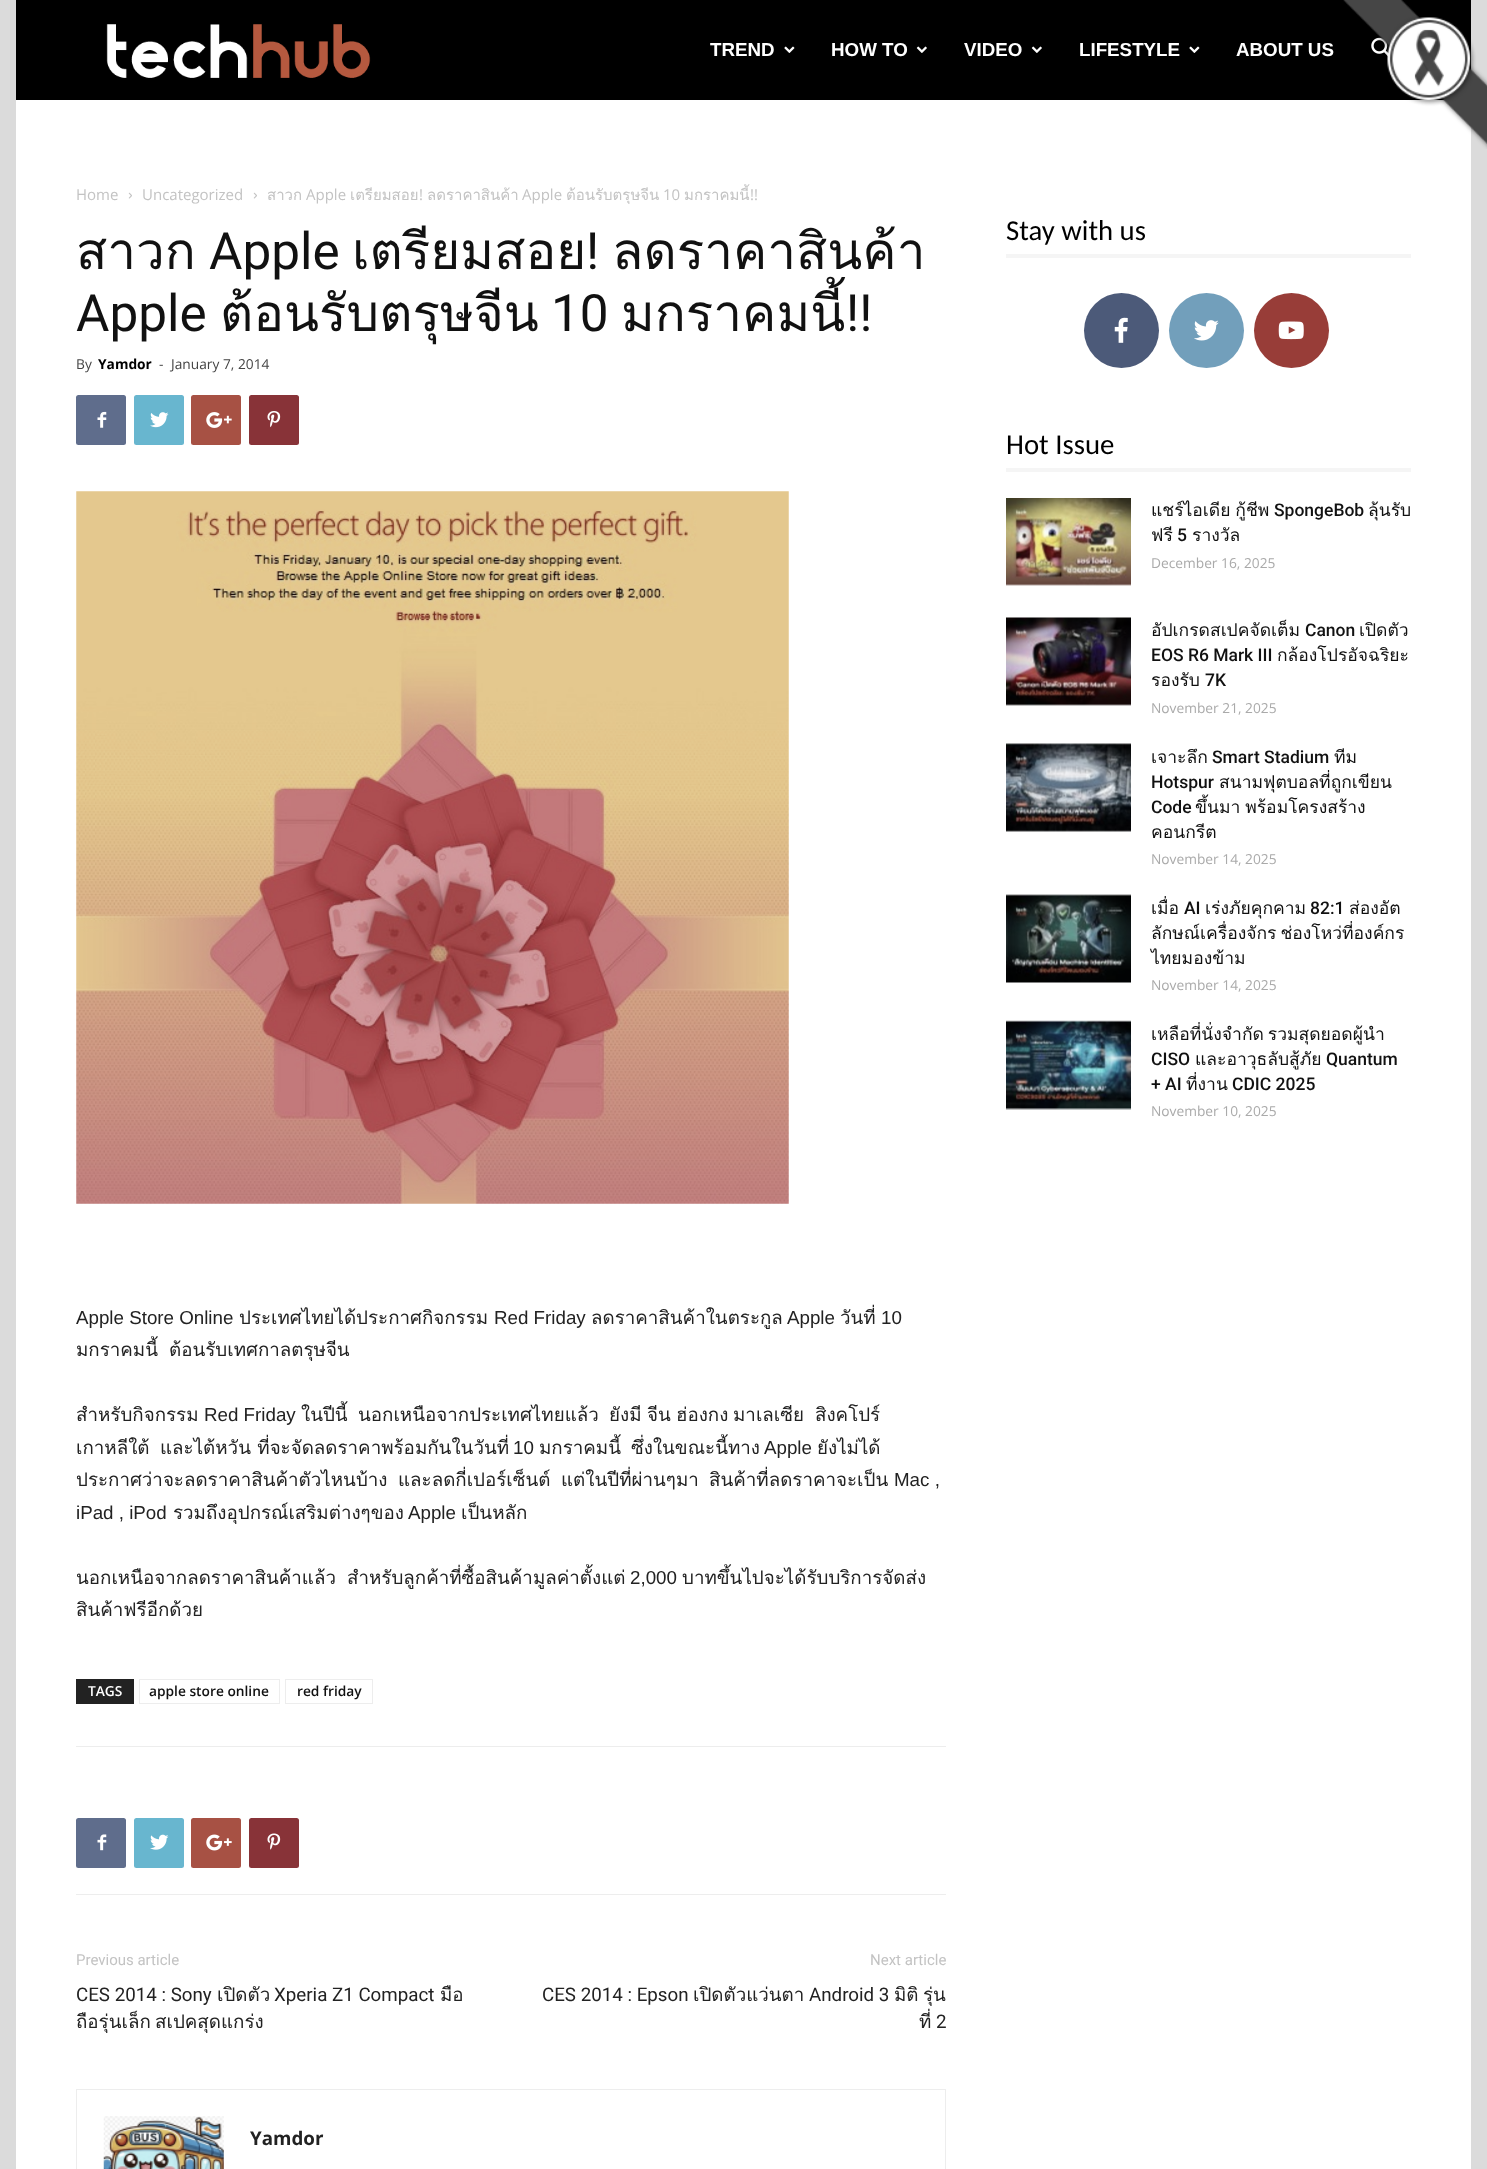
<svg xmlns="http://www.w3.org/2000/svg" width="1487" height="2169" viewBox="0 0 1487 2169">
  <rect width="100%" height="100%" fill="rgb(219,219,219)"/>
  <rect x="16" y="0" width="1455" height="100" fill="rgb(0,0,0)"/>
  <image x="106" y="24" width="265" height="54" href="pic1.png"/>
  <text x="710" y="56" font-family="Liberation Sans" font-size="18.75" font-weight="bold" fill="rgb(255,255,255)">TREND</text>
  <image x="784" y="46" width="11" height="7" href="pic2.png"/>
  <text x="831" y="56" font-family="Liberation Sans" font-size="18.75" font-weight="bold" fill="rgb(255,255,255)">HOW TO</text>
  <image x="916" y="46" width="11" height="7" href="pic3.png"/>
  <text x="964" y="56" font-family="Liberation Sans" font-size="18.75" font-weight="bold" fill="rgb(255,255,255)">VIDEO</text>
  <image x="1031" y="46" width="11" height="7" href="pic3.png"/>
  <text x="1079" y="56" font-family="Liberation Sans" font-size="18.75" font-weight="bold" fill="rgb(255,255,255)">LIFESTYLE</text>
  <image x="1189" y="46" width="11" height="7" href="pic2.png"/>
  <text x="1236" y="56" font-family="Liberation Sans" font-size="18.75" font-weight="bold" fill="rgb(255,255,255)">ABOUT US</text>
  <image x="1371" y="37" width="18" height="21" href="pic4.png"/>
  <rect x="16" y="100" width="1455" height="2069" fill="rgb(255,255,255)"/>
  <text x="76" y="200" font-family="Open Sans" font-size="15" fill="rgb(195,195,195)">Home</text>
  <image x="128" y="192" width="4" height="7" href="pic5.png"/>
  <text x="142" y="200" font-family="Open Sans" font-size="15" fill="rgb(195,195,195)">Uncategorized</text>
  <image x="253" y="192" width="4" height="7" href="pic5.png"/>
  <text x="267" y="200" font-family="Loma" font-size="15" fill="rgb(195,195,195)">สาวก</text>
  <text x="306" y="200" font-family="Open Sans" font-size="15" fill="rgb(195,195,195)">Apple</text>
  <text x="350" y="200" font-family="Loma" font-size="15" fill="rgb(195,195,195)">เตรียมสอย</text>
  <text x="419" y="200" font-family="Open Sans" font-size="15" fill="rgb(195,195,195)">!</text>
  <text x="427" y="200" font-family="Loma" font-size="15" fill="rgb(195,195,195)">ลดราคาสินค้า</text>
  <text x="522" y="200" font-family="Open Sans" font-size="15" fill="rgb(195,195,195)">Apple</text>
  <text x="566" y="200" font-family="Loma" font-size="15" fill="rgb(195,195,195)">ต้อนรับตรุษจีน</text>
  <text x="663" y="200" font-family="Open Sans" font-size="15" fill="rgb(195,195,195)">10</text>
  <text x="684" y="200" font-family="Loma" font-size="15" fill="rgb(195,195,195)">มกราคมนี้</text>
  <text x="750" y="200" font-family="Open Sans" font-size="15" fill="rgb(195,195,195)">!!</text>
  <text x="76" y="269" font-family="Loma" font-size="51.25" fill="rgb(17,17,17)">สาวก</text>
  <text x="209" y="269" font-family="Roboto" font-size="51.25" fill="rgb(17,17,17)">Apple</text>
  <text x="352" y="269" font-family="Loma" font-size="51.25" fill="rgb(17,17,17)">เตรียมสอย</text>
  <text x="586" y="269" font-family="Roboto" font-size="51.25" fill="rgb(17,17,17)">!</text>
  <text x="612" y="269" font-family="Loma" font-size="51.25" fill="rgb(17,17,17)">ลดราคาสินค้า</text>
  <text x="76" y="331" font-family="Roboto" font-size="51.25" fill="rgb(17,17,17)">Apple</text>
  <text x="220" y="331" font-family="Loma" font-size="51.25" fill="rgb(17,17,17)">ต้อนรับตรุษจีน</text>
  <text x="551" y="331" font-family="Roboto" font-size="51.25" fill="rgb(17,17,17)">10</text>
  <text x="621" y="331" font-family="Loma" font-size="51.25" fill="rgb(17,17,17)">มกราคมนี้</text>
  <text x="846" y="331" font-family="Roboto" font-size="51.25" fill="rgb(17,17,17)">!!</text>
  <text x="76" y="369" font-family="Open Sans" font-size="13.75" fill="rgb(68,68,68)">By</text>
  <text x="98" y="369" font-family="Open Sans" font-size="13.75" font-weight="bold" fill="rgb(0,0,0)">Yamdor</text>
  <g font-family="Open Sans" font-size="13.75" fill="rgb(68,68,68)">
    <text x="159" y="369">-</text>
    <text x="171" y="369">January 7, 2014</text>
  </g>
  <rect x="76" y="395" width="50" height="50" rx="2.5" fill="rgb(95,109,140)"/>
  <image x="97" y="411" width="10" height="17" href="pic6.png"/>
  <rect x="134" y="395" width="50" height="50" rx="2.5" fill="rgb(104,182,207)"/>
  <image x="150" y="412" width="19" height="16" href="pic7.png"/>
  <rect x="191" y="395" width="50" height="50" rx="2.5" fill="rgb(167,81,68)"/>
  <image x="206" y="412" width="26" height="16" href="pic8.png"/>
  <rect x="249" y="395" width="50" height="50" rx="2.5" fill="rgb(136,51,56)"/>
  <image x="267" y="411" width="14" height="17" href="pic9.png"/>
  <image x="76" y="491" width="713" height="713" href="pic10.png"/>
  <text x="76" y="1324" font-family="Liberation Sans" font-size="18.75" fill="rgb(34,34,34)">Apple Store Online</text>
  <text x="239" y="1324" font-family="Loma" font-size="18.75" fill="rgb(34,34,34)">ประเทศไทยได้ประกาศกิจกรรม</text>
  <text x="494" y="1324" font-family="Liberation Sans" font-size="18.75" fill="rgb(34,34,34)">Red Friday</text>
  <text x="591" y="1324" font-family="Loma" font-size="18.75" fill="rgb(34,34,34)">ลดราคาสินค้าในตระกูล</text>
  <text x="787" y="1324" font-family="Liberation Sans" font-size="18.75" fill="rgb(34,34,34)">Apple</text>
  <text x="840" y="1324" font-family="Loma" font-size="18.75" fill="rgb(34,34,34)">วันที่</text>
  <text x="881" y="1324" font-family="Liberation Sans" font-size="18.75" fill="rgb(34,34,34)">10</text>
  <g font-family="Loma" font-size="18.75" fill="rgb(34,34,34)">
    <text x="76" y="1356">มกราคมนี้</text>
    <text x="169" y="1356">ต้อนรับเทศกาลตรุษจีน</text>
    <text x="76" y="1421">สำหรับกิจกรรม</text>
  </g>
  <text x="204" y="1421" font-family="Liberation Sans" font-size="18.75" fill="rgb(34,34,34)">Red Friday</text>
  <g font-family="Loma" font-size="18.75" fill="rgb(34,34,34)">
    <text x="301" y="1421">ในปีนี้</text>
    <text x="358" y="1421">นอกเหนือจากประเทศไทยแล้ว</text>
    <text x="609" y="1421">ยังมี</text>
    <text x="647" y="1421">จีน</text>
    <text x="676" y="1421">ฮ่องกง</text>
    <text x="733" y="1421">มาเลเซีย</text>
    <text x="815" y="1421">สิงคโปร์</text>
    <text x="76" y="1454">เกาหลีใต้</text>
    <text x="160" y="1454">และไต้หวัน ที่จะจัดลดราคาพร้อมกันในวันที่</text>
  </g>
  <text x="513" y="1454" font-family="Liberation Sans" font-size="18.75" fill="rgb(34,34,34)">10</text>
  <g font-family="Loma" font-size="18.75" fill="rgb(34,34,34)">
    <text x="539" y="1454">มกราคมนี้</text>
    <text x="631" y="1454">ซึ่งในขณะนี้ทาง</text>
  </g>
  <text x="764" y="1454" font-family="Liberation Sans" font-size="18.75" fill="rgb(34,34,34)">Apple</text>
  <g font-family="Loma" font-size="18.75" fill="rgb(34,34,34)">
    <text x="817" y="1454">ยังไม่ได้</text>
    <text x="76" y="1486">ประกาศว่าจะลดราคาสินค้าตัวไหนบ้าง</text>
    <text x="398" y="1486">และลดกี่เปอร์เซ็นต์</text>
    <text x="561" y="1486">แต่ในปีที่ผ่านๆมา</text>
    <text x="709" y="1486">สินค้าที่ลดราคาจะเป็น</text>
  </g>
  <g font-family="Liberation Sans" font-size="18.75" fill="rgb(34,34,34)">
    <text x="894" y="1486">Mac ,</text>
    <text x="76" y="1519">iPad , iPod</text>
  </g>
  <text x="173" y="1519" font-family="Loma" font-size="18.75" fill="rgb(34,34,34)">รวมถึงอุปกรณ์เสริมต่างๆของ</text>
  <text x="408" y="1519" font-family="Liberation Sans" font-size="18.75" fill="rgb(34,34,34)">Apple</text>
  <g font-family="Loma" font-size="18.75" fill="rgb(34,34,34)">
    <text x="461" y="1519">เป็นหลัก</text>
    <text x="76" y="1584">นอกเหนือจากลดราคาสินค้าแล้ว</text>
    <text x="347" y="1584">สำหรับลูกค้าที่ซื้อสินค้ามูลค่าตั้งแต่</text>
  </g>
  <text x="630" y="1584" font-family="Liberation Sans" font-size="18.75" fill="rgb(34,34,34)">2,000</text>
  <g font-family="Loma" font-size="18.75" fill="rgb(34,34,34)">
    <text x="682" y="1584">บาทขึ้นไปจะได้รับบริการจัดส่ง</text>
    <text x="76" y="1616">สินค้าฟรีอีกด้วย</text>
  </g>
  <rect x="76" y="1679" width="58" height="25" fill="rgb(34,34,34)"/>
  <text x="88" y="1696" font-family="Open Sans" font-size="13.75" font-weight="600" fill="rgb(255,255,255)">TAGS</text>
  <rect x="139.5" y="1679.5" width="140" height="24" fill="none" stroke="rgb(237,237,237)"/>
  <text x="149" y="1696" font-family="Open Sans" font-size="13.75" font-weight="600" fill="rgb(17,17,17)">apple store online</text>
  <rect x="285.5" y="1679.5" width="87" height="24" fill="none" stroke="rgb(237,237,237)"/>
  <text x="297" y="1696" font-family="Open Sans" font-size="13.75" font-weight="600" fill="rgb(17,17,17)">red friday</text>
  <rect x="76" y="1746" width="870" height="1" fill="rgb(237,237,237)"/>
  <rect x="76" y="1894" width="870" height="1" fill="rgb(237,237,237)"/>
  <rect x="76" y="1818" width="50" height="50" rx="2.5" fill="rgb(95,109,140)"/>
  <image x="97" y="1834" width="10" height="17" href="pic11.png"/>
  <rect x="134" y="1818" width="50" height="50" rx="2.5" fill="rgb(104,182,207)"/>
  <image x="150" y="1834" width="19" height="16" href="pic12.png"/>
  <rect x="191" y="1818" width="50" height="50" rx="2.5" fill="rgb(167,81,68)"/>
  <image x="206" y="1834" width="26" height="17" href="pic13.png"/>
  <rect x="249" y="1818" width="50" height="50" rx="2.5" fill="rgb(136,51,56)"/>
  <image x="267" y="1833" width="14" height="17" href="pic14.png"/>
  <text x="76" y="1965" font-family="Roboto" font-size="15" fill="rgb(195,195,195)">Previous article</text>
  <text x="76" y="2001" font-family="Roboto" font-size="18.75" fill="rgb(34,34,34)">CES 2014 : Sony</text>
  <text x="217" y="2001" font-family="Loma" font-size="18.75" fill="rgb(34,34,34)">เปิดตัว</text>
  <text x="274" y="2001" font-family="Roboto" font-size="18.75" fill="rgb(34,34,34)">Xperia Z1 Compact</text>
  <g font-family="Loma" font-size="18.75" fill="rgb(34,34,34)">
    <text x="440" y="2001">มือ</text>
    <text x="76" y="2028" word-spacing="-2">ถือรุ่นเล็ก สเปคสุดแกร่ง</text>
  </g>
  <text x="870" y="1965" font-family="Roboto" font-size="15" fill="rgb(195,195,195)">Next article</text>
  <text x="542" y="2001" font-family="Roboto" font-size="18.75" fill="rgb(34,34,34)">CES 2014 : Epson</text>
  <text x="693" y="2001" font-family="Loma" font-size="18.75" fill="rgb(34,34,34)">เปิดตัวแว่นตา</text>
  <text x="809" y="2001" font-family="Roboto" font-size="18.75" fill="rgb(34,34,34)">Android 3</text>
  <g font-family="Loma" font-size="18.75" fill="rgb(34,34,34)">
    <text x="894" y="2001">มิติ</text>
    <text x="923" y="2001">รุ่น</text>
    <text x="919" y="2028">ที่</text>
  </g>
  <text x="936" y="2028" font-family="Roboto" font-size="18.75" fill="rgb(34,34,34)">2</text>
  <rect x="76.5" y="2089.5" width="869" height="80" fill="none" stroke="rgb(237,237,237)"/>
  <image x="103" y="2116" width="121" height="53" href="pic15.png"/>
  <text x="250" y="2145" font-family="Open Sans" font-size="18.75" font-weight="bold" fill="rgb(34,34,34)">Yamdor</text>
  <text x="1006" y="240" font-family="Carlito" font-size="28.75" fill="rgb(0,0,0)">Stay with us</text>
  <rect x="1006" y="254" width="405" height="4" fill="rgb(245,245,245)"/>
  <circle cx="1121.5" cy="330.5" r="37.5" fill="rgb(76,90,121)"/>
  <image x="1114" y="317" width="14" height="26" href="pic16.png"/>
  <circle cx="1206.5" cy="330.5" r="37.5" fill="rgb(114,159,187)"/>
  <image x="1194" y="320" width="25" height="21" href="pic17.png"/>
  <circle cx="1291.5" cy="330.5" r="37.5" fill="rgb(152,61,56)"/>
  <image x="1278" y="321" width="26" height="19" href="pic18.png"/>
  <text x="1006" y="454" font-family="Carlito" font-size="28.75" fill="rgb(0,0,0)">Hot Issue</text>
  <rect x="1006" y="468" width="405" height="4" fill="rgb(245,245,245)"/>
  <image x="1006" y="498" width="125" height="88" href="pic19.png"/>
  <text x="1151" y="516" word-spacing="-1" font-family="Loma" font-size="17.5" fill="rgb(17,17,17)">แชร์ไอเดีย กู้ชีพ</text>
  <text x="1274" y="516" font-family="Roboto" font-size="17.5" font-weight="500" fill="rgb(17,17,17)">SpongeBob</text>
  <g font-family="Loma" font-size="17.5" fill="rgb(17,17,17)">
    <text x="1368" y="516">ลุ้นรับ</text>
    <text x="1151" y="541">ฟรี</text>
  </g>
  <text x="1177" y="541" font-family="Roboto" font-size="17.5" font-weight="500" fill="rgb(17,17,17)">5</text>
  <text x="1192" y="541" font-family="Loma" font-size="17.5" fill="rgb(17,17,17)">รางวัล</text>
  <text x="1151" y="568" font-family="Open Sans" font-size="13.75" fill="rgb(170,170,170)">December 16, 2025</text>
  <image x="1006" y="617" width="125" height="89" href="pic20.png"/>
  <text x="1151" y="636" font-family="Loma" font-size="17.5" fill="rgb(17,17,17)">อัปเกรดสเปคจัดเต็ม</text>
  <text x="1305" y="636" font-family="Roboto" font-size="17.5" font-weight="500" fill="rgb(17,17,17)">Canon</text>
  <text x="1359" y="636" font-family="Loma" font-size="17.5" fill="rgb(17,17,17)">เปิดตัว</text>
  <text x="1151" y="661" font-family="Roboto" font-size="17.5" font-weight="500" fill="rgb(17,17,17)">EOS R6 Mark III</text>
  <g font-family="Loma" font-size="17.5" fill="rgb(17,17,17)">
    <text x="1277" y="661">กล้องโปรอัจฉริยะ</text>
    <text x="1151" y="686">รองรับ</text>
  </g>
  <text x="1205" y="686" font-family="Roboto" font-size="17.5" font-weight="500" fill="rgb(17,17,17)">7K</text>
  <text x="1151" y="713" font-family="Open Sans" font-size="13.75" fill="rgb(170,170,170)">November 21, 2025</text>
  <image x="1006" y="743" width="125" height="89" href="pic21.png"/>
  <text x="1151" y="763" font-family="Loma" font-size="17.5" fill="rgb(17,17,17)">เจาะลึก</text>
  <text x="1212" y="763" font-family="Roboto" font-size="17.5" font-weight="500" fill="rgb(17,17,17)">Smart Stadium</text>
  <text x="1334" y="763" font-family="Loma" font-size="17.5" fill="rgb(17,17,17)">ทีม</text>
  <text x="1151" y="788" font-family="Roboto" font-size="17.5" font-weight="500" fill="rgb(17,17,17)">Hotspur</text>
  <text x="1219" y="788" font-family="Loma" font-size="17.5" fill="rgb(17,17,17)">สนามฟุตบอลที่ถูกเขียน</text>
  <text x="1151" y="813" font-family="Roboto" font-size="17.5" font-weight="500" fill="rgb(17,17,17)">Code</text>
  <g font-family="Loma" font-size="17.5" fill="rgb(17,17,17)">
    <text x="1195" y="813" word-spacing="-1">ขึ้นมา พร้อมโครงสร้าง</text>
    <text x="1151" y="838">คอนกรีต</text>
  </g>
  <text x="1151" y="864" font-family="Open Sans" font-size="13.75" fill="rgb(170,170,170)">November 14, 2025</text>
  <image x="1006" y="894" width="125" height="89" href="pic22.png"/>
  <text x="1151" y="914" font-family="Loma" font-size="17.5" fill="rgb(17,17,17)">เมื่อ</text>
  <text x="1184" y="914" font-family="Roboto" font-size="17.5" font-weight="500" fill="rgb(17,17,17)">AI</text>
  <text x="1205" y="914" font-family="Loma" font-size="17.5" fill="rgb(17,17,17)">เร่งภัยคุกคาม</text>
  <text x="1310" y="914" font-family="Roboto" font-size="17.5" font-weight="500" fill="rgb(17,17,17)">82:1</text>
  <g font-family="Loma" font-size="17.5" fill="rgb(17,17,17)">
    <text x="1349" y="914">ส่องอัต</text>
    <text>
      <tspan x="1151" y="939" word-spacing="-2">ลักษณ์เครื่องจักร ช่องโหว่ที่องค์กร</tspan>
      <tspan x="1151" y="964">ไทยมองข้าม</tspan>
    </text>
  </g>
  <text x="1151" y="990" font-family="Open Sans" font-size="13.75" fill="rgb(170,170,170)">November 14, 2025</text>
  <image x="1006" y="1020" width="125" height="90" href="pic23.png"/>
  <text x="1151" y="1040" word-spacing="-2" font-family="Loma" font-size="17.5" fill="rgb(17,17,17)">เหลือที่นั่งจำกัด รวมสุดยอดผู้นำ</text>
  <text x="1151" y="1065" font-family="Roboto" font-size="17.5" font-weight="500" fill="rgb(17,17,17)">CISO</text>
  <text x="1195" y="1065" font-family="Loma" font-size="17.5" fill="rgb(17,17,17)">และอาวุธลับสู้ภัย</text>
  <g font-family="Roboto" font-size="17.5" font-weight="500" fill="rgb(17,17,17)">
    <text x="1326" y="1065">Quantum</text>
    <text x="1151" y="1090">+ AI</text>
  </g>
  <text x="1186" y="1090" font-family="Loma" font-size="17.5" fill="rgb(17,17,17)">ที่งาน</text>
  <text x="1232" y="1090" font-family="Roboto" font-size="17.5" font-weight="500" fill="rgb(17,17,17)">CDIC 2025</text>
  <text x="1151" y="1116" font-family="Open Sans" font-size="13.75" fill="rgb(170,170,170)">November 10, 2025</text>
  <image x="1343" y="0" width="144" height="149" href="pic24.png"/>
</svg>
